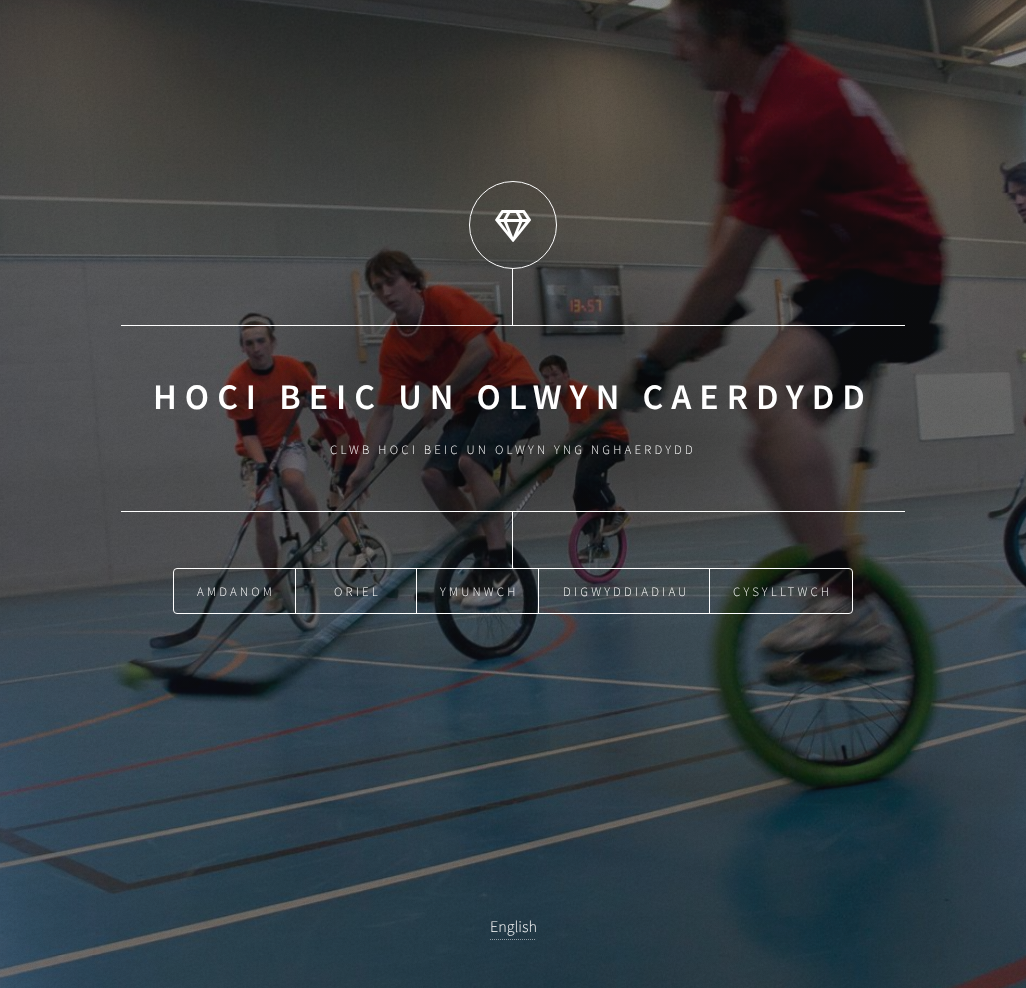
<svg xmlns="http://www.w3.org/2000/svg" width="1026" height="988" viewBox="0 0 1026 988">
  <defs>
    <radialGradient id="g1" gradientUnits="userSpaceOnUse" cx="0" cy="0" r="1" gradientTransform="matrix(554 0 0 306 513 398)"><stop offset="0.25" stop-color="rgb(0,0,0)" stop-opacity="0.25"/><stop offset="0.55" stop-color="rgb(0,0,0)" stop-opacity="0"/></radialGradient>
  </defs>
  <rect width="100%" height="100%" fill="rgb(255,255,255)"/>
  <image x="0" y="0" width="1026" height="988" href="pic1.png"/>
  <image x="0" y="0" width="1026" height="988" href="pic2.png"/>
  <rect x="226" y="242" width="570" height="312" fill="url(#g1)"/>
  <circle cx="513" cy="225" r="43.5" fill="none" stroke="rgb(255,255,255)"/>
  <image x="495" y="210" width="36" height="32" href="pic3.png"/>
  <rect x="121" y="325" width="784" height="1" fill="rgb(255,255,255)"/>
  <rect x="121" y="511" width="784" height="1" fill="rgb(255,255,255)"/>
  <rect x="512" y="269" width="1" height="57" fill="rgb(255,255,255)"/>
  <text x="153" y="409" font-family="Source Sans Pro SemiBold" font-size="36" font-weight="600" letter-spacing="8" fill="rgb(255,255,255)">HOCI BEIC UN OLWYN CAERDYDD</text>
  <text x="330" y="454" font-family="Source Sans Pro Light" font-size="12.8" font-weight="300" letter-spacing="3.2" fill="rgb(255,255,255)">CLWB HOCI BEIC UN OLWYN YNG NGHAERDYDD</text>
  <rect x="512" y="511" width="1" height="57" fill="rgb(255,255,255)"/>
  <rect x="173.5" y="568.5" width="679" height="45" rx="3.5" fill="none" stroke="rgb(255,255,255)"/>
  <text x="197" y="596" font-family="Source Sans Pro Light" font-size="12.8" font-weight="300" letter-spacing="3.2" fill="rgb(255,255,255)">AMDANOM</text>
  <rect x="295" y="569" width="1" height="44" fill="rgb(255,255,255)"/>
  <text x="334" y="596" font-family="Source Sans Pro Light" font-size="12.8" font-weight="300" letter-spacing="3.2" fill="rgb(255,255,255)">ORIEL</text>
  <rect x="416" y="569" width="1" height="44" fill="rgb(255,255,255)"/>
  <text x="440" y="596" font-family="Source Sans Pro Light" font-size="12.8" font-weight="300" letter-spacing="3.2" fill="rgb(255,255,255)">YMUNWCH</text>
  <rect x="538" y="569" width="1" height="44" fill="rgb(255,255,255)"/>
  <text x="563" y="596" font-family="Source Sans Pro Light" font-size="12.8" font-weight="300" letter-spacing="3.2" fill="rgb(255,255,255)">DIGWYDDIADIAU</text>
  <rect x="709" y="569" width="1" height="44" fill="rgb(255,255,255)"/>
  <text x="733" y="596" font-family="Source Sans Pro Light" font-size="12.8" font-weight="300" letter-spacing="3.2" fill="rgb(255,255,255)">CYSYLLTWCH</text>
  <path d="M490 939.5H536" fill="none" stroke="rgba(255,255,255,0.5)" stroke-dasharray="1 1"/>
  <text x="490" y="932" font-family="Source Sans Pro Light" font-size="16" font-weight="300" fill="rgb(255,255,255)">English</text>
</svg>
